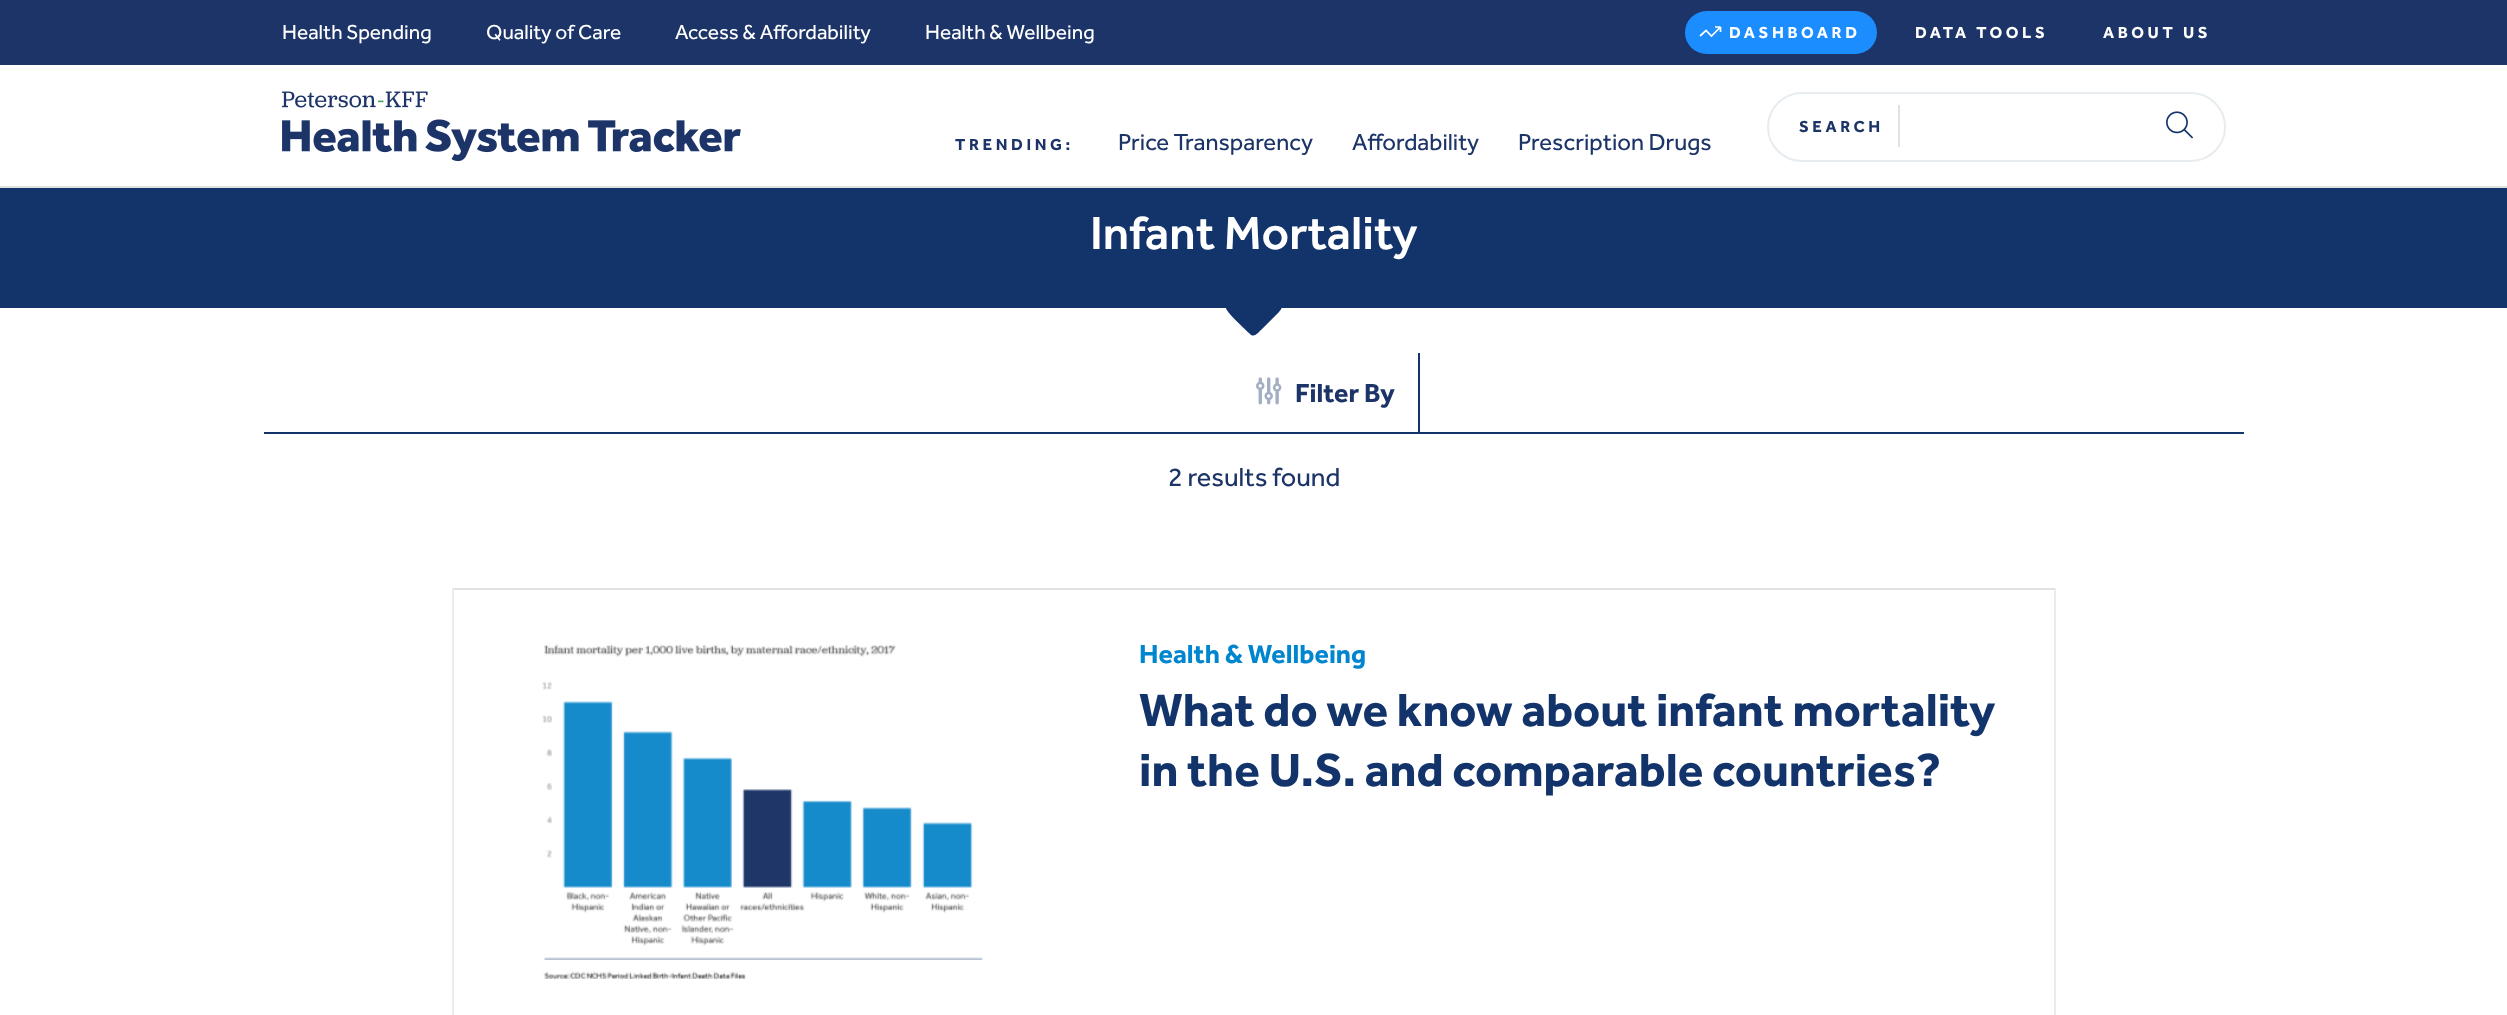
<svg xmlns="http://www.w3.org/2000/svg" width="2507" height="1015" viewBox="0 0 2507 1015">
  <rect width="100%" height="100%" fill="rgb(255,255,255)"/>
  <rect x="0" y="0" width="2507" height="65" fill="rgb(28,52,103)"/>
  <g font-family="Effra" font-size="21" fill="rgb(255,255,255)">
    <text x="282" y="39">Health Spending</text>
    <text x="486" y="39">Quality of Care</text>
    <text x="675" y="39">Access &amp; Affordability</text>
    <text x="925" y="39">Health &amp; Wellbeing</text>
  </g>
  <rect x="1685" y="11" width="192" height="43" rx="21.5" fill="rgb(27,141,255)"/>
  <path d="M1700 36L1706 30.5L1711.5 36L1720.5 27M1720.5 27H1715M1720.5 27V32" fill="none" stroke="rgb(255,255,255)" stroke-width="1.7"/>
  <g font-family="Effra" font-size="16.5" font-weight="bold" letter-spacing="3.6" fill="rgb(255,255,255)">
    <text x="1729" y="38">DASHBOARD</text>
    <text x="1915" y="38">DATA TOOLS</text>
    <text x="2103" y="38">ABOUT US</text>
  </g>
  <rect x="0" y="186" width="2507" height="2" fill="rgb(223,225,226)"/>
  <image x="282" y="91" width="459" height="71" href="pic1.png"/>
  <rect x="1768" y="93" width="457" height="68" rx="34" fill="none" stroke="rgb(230,236,239)" stroke-width="2"/>
  <text x="1799" y="132" font-family="Effra" font-size="16.5" font-weight="bold" letter-spacing="3.6" fill="rgb(28,52,103)">SEARCH</text>
  <rect x="1898" y="105" width="2" height="42" fill="rgb(223,225,226)"/>
  <image x="2166" y="111" width="27" height="28" href="pic2.png"/>
  <text x="955" y="150" font-family="Effra" font-size="16.5" font-weight="bold" letter-spacing="3.6" fill="rgb(28,52,103)">TRENDING:</text>
  <g font-family="Effra" font-size="24" fill="rgb(28,52,103)">
    <text x="1118" y="150">Price Transparency</text>
    <text x="1352" y="150">Affordability</text>
    <text x="1518" y="150">Prescription Drugs</text>
  </g>
  <rect x="0" y="188" width="2507" height="120" fill="rgb(19,52,107)"/>
  <text x="1090" y="249" font-family="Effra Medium" font-size="48" font-weight="500" fill="rgb(255,255,255)">Infant Mortality</text>
  <path d="M1250 334C1254 338 1258 333 1261 330L1276 315C1279 312 1285 307 1280 303C1277 300 1271 302 1269 302H1239C1234 302 1224 300 1226 308C1226 312 1246 330 1250 334Z" fill="rgb(19,52,107)"/>
  <rect x="264" y="432" width="1980" height="2" fill="rgb(19,52,107)"/>
  <rect x="1418" y="353" width="2" height="79" fill="rgb(19,52,107)"/>
  <image x="1256" y="377" width="26" height="28" href="pic3.png"/>
  <text x="1295" y="402" font-family="Effra" font-size="27" font-weight="bold" fill="rgb(28,52,103)">Filter By</text>
  <text x="1168" y="486" font-family="Effra" font-size="27" fill="rgb(28,52,103)">2 results found</text>
  <path d="M452 588H2056L2054 590H454Z" fill="rgb(223,225,226)"/>
  <path d="M2056 588V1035L2054 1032V590Z" fill="rgb(230,236,239)"/>
  <path d="M452 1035V588L454 590V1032Z" fill="rgb(230,236,239)"/>
  <image x="542" y="644" width="441" height="335" href="pic4.png"/>
  <text x="1139" y="663" font-family="Effra" font-size="27" font-weight="bold" fill="rgb(0,133,207)">Health &amp; Wellbeing</text>
  <g font-family="Effra" font-size="48" font-weight="bold" fill="rgb(19,52,107)">
    <text>
      <tspan x="1139" y="726">What do we know about infant mortality</tspan>
      <tspan x="1139" y="786">in the U.S. and comparable countries?</tspan>
    </text>
  </g>
</svg>
